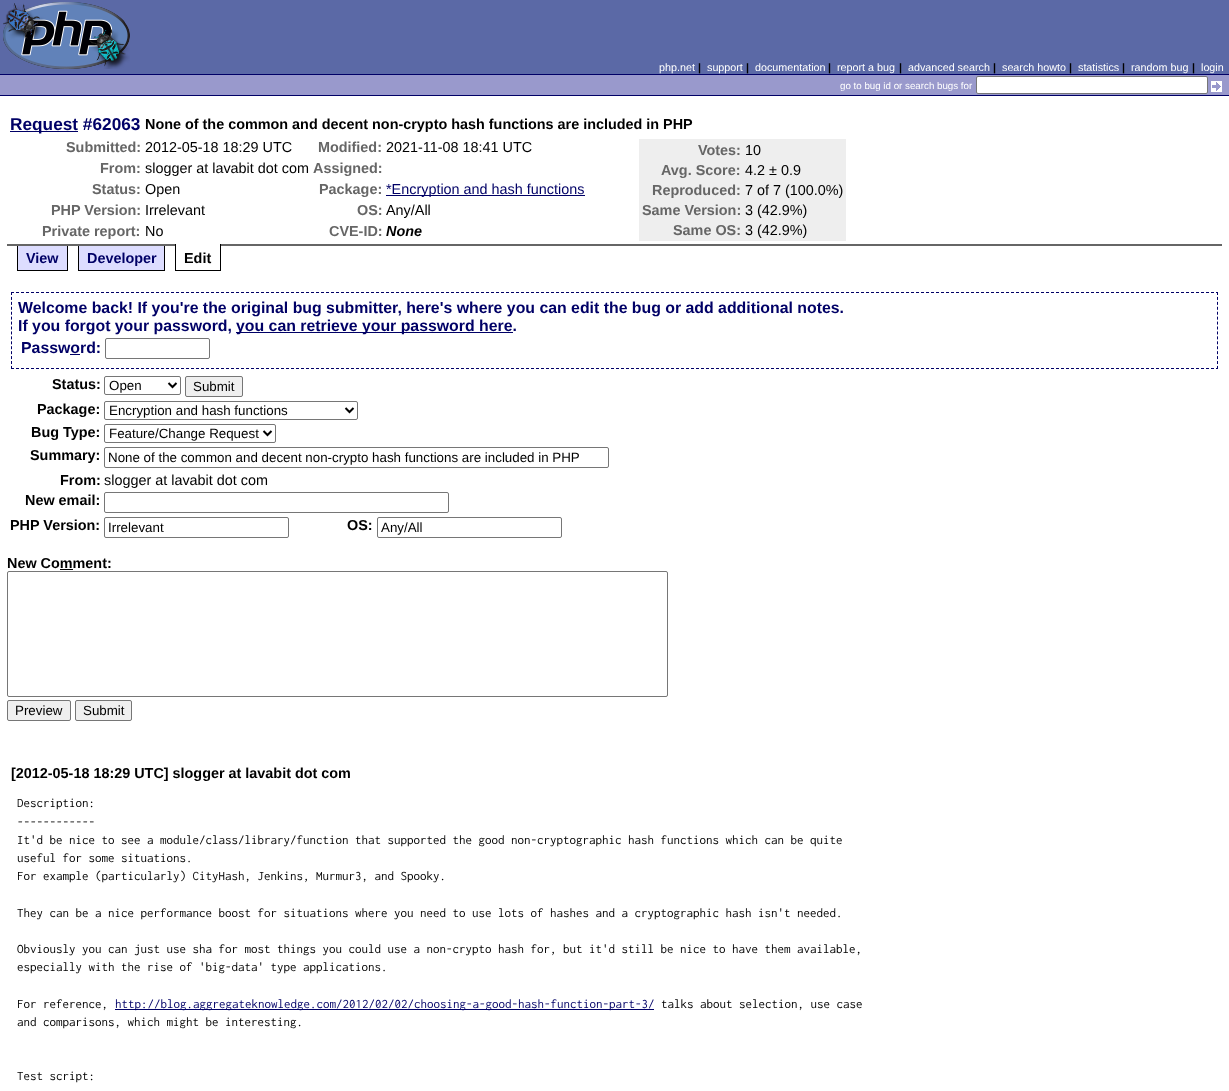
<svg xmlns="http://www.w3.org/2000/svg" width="1229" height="1091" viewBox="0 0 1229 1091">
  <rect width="100%" height="100%" fill="rgb(255,255,255)"/>
  <rect x="0" y="0" width="1229" height="74" fill="rgb(91,105,166)"/>
  <image x="3" y="2" width="127" height="67" href="pic1.png"/>
  <text x="659" y="71" font-family="Liberation Sans" font-size="10.75" fill="rgb(255,255,255)">php.net</text>
  <text x="698" y="71" font-family="Liberation Sans" font-size="10.75" font-weight="bold" fill="rgb(0,0,0)">|</text>
  <text x="707" y="71" font-family="Liberation Sans" font-size="10.75" fill="rgb(255,255,255)">support</text>
  <text x="746" y="71" font-family="Liberation Sans" font-size="10.75" font-weight="bold" fill="rgb(0,0,0)">|</text>
  <text x="755" y="71" font-family="Liberation Sans" font-size="10.75" fill="rgb(255,255,255)">documentation</text>
  <text x="828" y="71" font-family="Liberation Sans" font-size="10.75" font-weight="bold" fill="rgb(0,0,0)">|</text>
  <text x="837" y="71" font-family="Liberation Sans" font-size="10.75" fill="rgb(255,255,255)">report a bug</text>
  <text x="899" y="71" font-family="Liberation Sans" font-size="10.75" font-weight="bold" fill="rgb(0,0,0)">|</text>
  <text x="908" y="71" font-family="Liberation Sans" font-size="10.75" fill="rgb(255,255,255)">advanced search</text>
  <text x="993" y="71" font-family="Liberation Sans" font-size="10.75" font-weight="bold" fill="rgb(0,0,0)">|</text>
  <text x="1002" y="71" font-family="Liberation Sans" font-size="10.75" fill="rgb(255,255,255)">search howto</text>
  <text x="1069" y="71" font-family="Liberation Sans" font-size="10.75" font-weight="bold" fill="rgb(0,0,0)">|</text>
  <text x="1078" y="71" font-family="Liberation Sans" font-size="10.75" fill="rgb(255,255,255)">statistics</text>
  <text x="1122" y="71" font-family="Liberation Sans" font-size="10.75" font-weight="bold" fill="rgb(0,0,0)">|</text>
  <text x="1131" y="71" font-family="Liberation Sans" font-size="10.75" fill="rgb(255,255,255)">random bug</text>
  <text x="1192" y="71" font-family="Liberation Sans" font-size="10.75" font-weight="bold" fill="rgb(0,0,0)">|</text>
  <text x="1201" y="71" font-family="Liberation Sans" font-size="10.75" fill="rgb(255,255,255)">login</text>
  <rect x="0" y="75" width="1229" height="20" fill="rgb(153,153,204)"/>
  <rect x="0" y="74" width="1229" height="1" fill="rgb(0,0,102)"/>
  <rect x="0" y="95" width="1229" height="1" fill="rgb(0,0,102)"/>
  <text x="840" y="89" font-family="Liberation Sans" font-size="9.75" fill="rgb(255,255,255)">go to bug id or search bugs for</text>
  <rect x="976.5" y="76.5" width="231" height="17" rx="1.5" fill="rgb(255,255,255)" stroke="rgb(118,118,118)"/>
  <image x="1211" y="81" width="11" height="11" href="pic2.png"/>
  <rect x="7" y="244" width="1215" height="2" fill="rgb(102,102,102)"/>
  <rect x="10" y="131" width="68" height="1" fill="rgb(0,0,102)"/>
  <text x="10" y="130" font-family="Liberation Sans" font-size="17.25" font-weight="bold" fill="rgb(0,0,102)">Request #62063</text>
  <text x="145" y="129" font-family="Liberation Sans" font-size="14.4" font-weight="bold" fill="rgb(0,0,0)">None of the common and decent non-crypto hash functions are included in PHP</text>
  <text x="66" y="152" font-family="Liberation Sans" font-size="14.4" font-weight="bold" fill="rgb(102,102,102)">Submitted:</text>
  <text x="145" y="152" font-family="Liberation Sans" font-size="14.4" fill="rgb(0,0,0)">2012-05-18 18:29 UTC</text>
  <text x="318" y="152" font-family="Liberation Sans" font-size="14.4" font-weight="bold" fill="rgb(102,102,102)">Modified:</text>
  <text x="386" y="152" font-family="Liberation Sans" font-size="14.4" fill="rgb(0,0,0)">2021-11-08 18:41 UTC</text>
  <rect x="639" y="139" width="207" height="102" fill="rgb(238,238,238)"/>
  <text x="698" y="155" font-family="Liberation Sans" font-size="14.4" font-weight="bold" fill="rgb(102,102,102)">Votes:</text>
  <text x="745" y="155" font-family="Liberation Sans" font-size="14.4" fill="rgb(0,0,0)">10</text>
  <text x="661" y="175" font-family="Liberation Sans" font-size="14.4" font-weight="bold" fill="rgb(102,102,102)">Avg. Score:</text>
  <text x="745" y="175" font-family="Liberation Sans" font-size="14.4" fill="rgb(0,0,0)">4.2 ± 0.9</text>
  <text x="652" y="195" font-family="Liberation Sans" font-size="14.4" font-weight="bold" fill="rgb(102,102,102)">Reproduced:</text>
  <text x="745" y="195" font-family="Liberation Sans" font-size="14.4" fill="rgb(0,0,0)">7 of 7 (100.0%)</text>
  <text x="642" y="215" font-family="Liberation Sans" font-size="14.4" font-weight="bold" fill="rgb(102,102,102)">Same Version:</text>
  <text x="745" y="215" font-family="Liberation Sans" font-size="14.4" fill="rgb(0,0,0)">3 (42.9%)</text>
  <text x="673" y="235" font-family="Liberation Sans" font-size="14.4" font-weight="bold" fill="rgb(102,102,102)">Same OS:</text>
  <text x="745" y="235" font-family="Liberation Sans" font-size="14.4" fill="rgb(0,0,0)">3 (42.9%)</text>
  <text x="100" y="173" font-family="Liberation Sans" font-size="14.4" font-weight="bold" fill="rgb(102,102,102)">From:</text>
  <text x="145" y="173" font-family="Liberation Sans" font-size="14.4" fill="rgb(0,0,0)">slogger at lavabit dot com</text>
  <g font-family="Liberation Sans" font-size="14.4" font-weight="bold" fill="rgb(102,102,102)">
    <text x="313" y="173">Assigned:</text>
    <text x="92" y="194">Status:</text>
  </g>
  <text x="145" y="194" font-family="Liberation Sans" font-size="14.4" fill="rgb(0,0,0)">Open</text>
  <text x="319" y="194" font-family="Liberation Sans" font-size="14.4" font-weight="bold" fill="rgb(102,102,102)">Package:</text>
  <rect x="386" y="195" width="199" height="1" fill="rgb(0,0,102)"/>
  <text x="386" y="194" font-family="Liberation Sans" font-size="14.4" fill="rgb(0,0,102)">*Encryption and hash functions</text>
  <text x="51" y="215" font-family="Liberation Sans" font-size="14.4" font-weight="bold" fill="rgb(102,102,102)">PHP Version:</text>
  <text x="145" y="215" font-family="Liberation Sans" font-size="14.4" fill="rgb(0,0,0)">Irrelevant</text>
  <text x="357" y="215" font-family="Liberation Sans" font-size="14.4" font-weight="bold" fill="rgb(102,102,102)">OS:</text>
  <text x="386" y="215" font-family="Liberation Sans" font-size="14.4" fill="rgb(0,0,0)">Any/All</text>
  <text x="42" y="236" font-family="Liberation Sans" font-size="14.4" font-weight="bold" fill="rgb(102,102,102)">Private report:</text>
  <text x="145" y="236" font-family="Liberation Sans" font-size="14.4" fill="rgb(0,0,0)">No</text>
  <text x="329" y="236" font-family="Liberation Sans" font-size="14.4" font-weight="bold" fill="rgb(102,102,102)">CVE-ID:</text>
  <text x="386" y="236" font-family="Liberation Sans" font-size="14.4" font-weight="bold" font-style="italic" fill="rgb(0,0,0)">None</text>
  <rect x="18" y="246" width="49" height="24" fill="rgb(221,221,255)"/>
  <rect x="67" y="246" width="1" height="25" fill="rgb(0,0,0)"/>
  <rect x="17" y="270" width="51" height="1" fill="rgb(0,0,0)"/>
  <rect x="17" y="246" width="1" height="25" fill="rgb(0,0,0)"/>
  <text x="26" y="263" font-family="Liberation Sans" font-size="14.4" font-weight="bold" fill="rgb(0,0,102)">View</text>
  <rect x="79" y="246" width="85" height="24" fill="rgb(221,221,255)"/>
  <rect x="164" y="246" width="1" height="25" fill="rgb(0,0,0)"/>
  <rect x="78" y="270" width="87" height="1" fill="rgb(0,0,0)"/>
  <rect x="78" y="246" width="1" height="25" fill="rgb(0,0,0)"/>
  <text x="87" y="263" font-family="Liberation Sans" font-size="14.4" font-weight="bold" fill="rgb(0,0,102)">Developer</text>
  <rect x="176" y="244" width="44" height="2" fill="rgb(255,255,255)"/>
  <rect x="220" y="244" width="1" height="27" fill="rgb(0,0,0)"/>
  <rect x="175" y="270" width="46" height="1" fill="rgb(0,0,0)"/>
  <rect x="175" y="244" width="1" height="27" fill="rgb(0,0,0)"/>
  <text x="184" y="263" font-family="Liberation Sans" font-size="14.4" font-weight="bold" fill="rgb(0,0,0)">Edit</text>
  <path d="M11 292.5H1218" fill="none" stroke="rgb(0,0,102)" stroke-dasharray="3 2"/>
  <path d="M1217.5 292V369" fill="none" stroke="rgb(0,0,102)" stroke-dasharray="3 1.93"/>
  <path d="M11 368.5H1218" fill="none" stroke="rgb(0,0,102)" stroke-dasharray="3 2"/>
  <path d="M11.5 292V369" fill="none" stroke="rgb(0,0,102)" stroke-dasharray="3 1.93"/>
  <g font-family="Liberation Sans" font-size="15.85" font-weight="bold" fill="rgb(0,0,102)">
    <text>
      <tspan x="18" y="313">Welcome back! If you're the original bug submitter, here's where you can edit the bug or add additional notes.</tspan>
      <tspan x="18" y="331">If you forgot your password,</tspan>
    </text>
  </g>
  <rect x="236" y="332" width="277" height="1" fill="rgb(0,0,102)"/>
  <g font-family="Liberation Sans" font-size="15.85" font-weight="bold" fill="rgb(0,0,102)">
    <text x="236" y="331">you can retrieve your password here.</text>
    <text x="21" y="353">Password:</text>
  </g>
  <rect x="70" y="354" width="10" height="1" fill="rgb(0,0,102)"/>
  <rect x="105.5" y="338.5" width="104" height="20" rx="1.5" fill="none" stroke="rgb(118,118,118)"/>
  <text x="52" y="389" font-family="Liberation Sans" font-size="14.4" font-weight="bold" fill="rgb(0,0,0)">Status:</text>
  <rect x="104.5" y="376.5" width="76" height="18" rx="1.5" fill="none" stroke="rgb(118,118,118)"/>
  <path d="M168.5 383L172.5 387L176.5 383" fill="none" stroke="rgb(0,0,0)" stroke-width="2"/>
  <text x="109" y="390" font-family="Liberation Sans" font-size="13.35" fill="rgb(0,0,0)">Open</text>
  <rect x="185.5" y="376.5" width="57" height="20" rx="1.5" fill="rgb(239,239,239)" stroke="rgb(118,118,118)"/>
  <text x="193" y="391" font-family="Liberation Sans" font-size="13.35" fill="rgb(0,0,0)">Submit</text>
  <text x="37" y="414" font-family="Liberation Sans" font-size="14.4" font-weight="bold" fill="rgb(0,0,0)">Package:</text>
  <rect x="104.5" y="401.5" width="253" height="18" rx="1.5" fill="none" stroke="rgb(118,118,118)"/>
  <path d="M345.5 408L349.5 412L353.5 408" fill="none" stroke="rgb(0,0,0)" stroke-width="2"/>
  <text x="109" y="415" font-family="Liberation Sans" font-size="13.35" fill="rgb(0,0,0)">Encryption and hash functions</text>
  <text x="31" y="437" font-family="Liberation Sans" font-size="14.4" font-weight="bold" fill="rgb(0,0,0)">Bug Type:</text>
  <rect x="104.5" y="424.5" width="171" height="18" rx="1.5" fill="none" stroke="rgb(118,118,118)"/>
  <path d="M263.5 431L267.5 435L271.5 431" fill="none" stroke="rgb(0,0,0)" stroke-width="2"/>
  <text x="109" y="438" font-family="Liberation Sans" font-size="13.35" fill="rgb(0,0,0)">Feature/Change Request</text>
  <text x="30" y="460" font-family="Liberation Sans" font-size="14.4" font-weight="bold" fill="rgb(0,0,0)">Summary:</text>
  <rect x="104.5" y="447.5" width="504" height="20" rx="1.5" fill="none" stroke="rgb(118,118,118)"/>
  <text x="108" y="462" font-family="Liberation Sans" font-size="13.35" fill="rgb(0,0,0)">None of the common and decent non-crypto hash functions are included in PHP</text>
  <text x="60" y="485" font-family="Liberation Sans" font-size="14.4" font-weight="bold" fill="rgb(0,0,0)">From:</text>
  <text x="104" y="485" font-family="Liberation Sans" font-size="14.4" fill="rgb(0,0,0)">slogger at lavabit dot com</text>
  <text x="25" y="505" font-family="Liberation Sans" font-size="14.4" font-weight="bold" fill="rgb(0,0,0)">New email:</text>
  <rect x="104.5" y="492.5" width="344" height="20" rx="1.5" fill="none" stroke="rgb(118,118,118)"/>
  <text x="10" y="530" font-family="Liberation Sans" font-size="14.4" font-weight="bold" fill="rgb(0,0,0)">PHP Version:</text>
  <rect x="104.5" y="517.5" width="184" height="20" rx="1.5" fill="none" stroke="rgb(118,118,118)"/>
  <text x="108" y="532" font-family="Liberation Sans" font-size="13.35" fill="rgb(0,0,0)">Irrelevant</text>
  <text x="347" y="530" font-family="Liberation Sans" font-size="14.4" font-weight="bold" fill="rgb(0,0,0)">OS:</text>
  <rect x="377.5" y="517.5" width="184" height="20" rx="1.5" fill="none" stroke="rgb(118,118,118)"/>
  <text x="381" y="532" font-family="Liberation Sans" font-size="13.35" fill="rgb(0,0,0)">Any/All</text>
  <text x="7" y="568" font-family="Liberation Sans" font-size="14.4" font-weight="bold" fill="rgb(0,0,0)">New Comment:</text>
  <rect x="60" y="569" width="13" height="1" fill="rgb(0,0,0)"/>
  <rect x="7.5" y="571.5" width="660" height="125" rx="1.5" fill="none" stroke="rgb(118,118,118)"/>
  <rect x="7.5" y="700.5" width="63" height="20" rx="1.5" fill="rgb(239,239,239)" stroke="rgb(118,118,118)"/>
  <text x="15" y="715" font-family="Liberation Sans" font-size="13.35" fill="rgb(0,0,0)">Preview</text>
  <rect x="75.5" y="700.5" width="56" height="20" rx="1.5" fill="rgb(239,239,239)" stroke="rgb(118,118,118)"/>
  <text x="83" y="715" font-family="Liberation Sans" font-size="13.35" fill="rgb(0,0,0)">Submit</text>
  <text x="11" y="778" font-family="Liberation Sans" font-size="14.4" font-weight="bold" fill="rgb(0,0,0)">[2012-05-18 18:29 UTC] slogger at lavabit dot com</text>
  <g font-family="Inconsolata" font-size="13" fill="rgb(0,0,0)">
    <text>
      <tspan x="17" y="807">Description:</tspan>
      <tspan x="17" y="826">------------</tspan>
      <tspan x="17" y="844">It'd be nice to see a module/class/library/function that supported the good non-cryptographic hash functions which can be quite</tspan>
      <tspan x="17" y="862">useful for some situations.</tspan>
      <tspan x="17" y="880">For example (particularly) CityHash, Jenkins, Murmur3, and Spooky.</tspan>
    </text>
    <text x="17" y="917">They can be a nice performance boost for situations where you need to use lots of hashes and a cryptographic hash isn't needed.</text>
    <text>
      <tspan x="17" y="953">Obviously you can just use sha for most things you could use a non-crypto hash for, but it'd still be nice to have them available,</tspan>
      <tspan x="17" y="971">especially with the rise of 'big-data' type applications.</tspan>
    </text>
    <text x="17" y="1008">For reference,</text>
  </g>
  <rect x="115" y="1009" width="539" height="1" fill="rgb(0,0,102)"/>
  <text x="115" y="1008" font-family="Inconsolata" font-size="13" fill="rgb(0,0,102)">http://blog.aggregateknowledge.com/2012/02/02/choosing-a-good-hash-function-part-3/</text>
  <g font-family="Inconsolata" font-size="13" fill="rgb(0,0,0)">
    <text x="661" y="1008">talks about selection, use case</text>
    <text x="17" y="1026">and comparisons, which might be interesting.</text>
    <text x="17" y="1080">Test script:</text>
  </g>
</svg>
